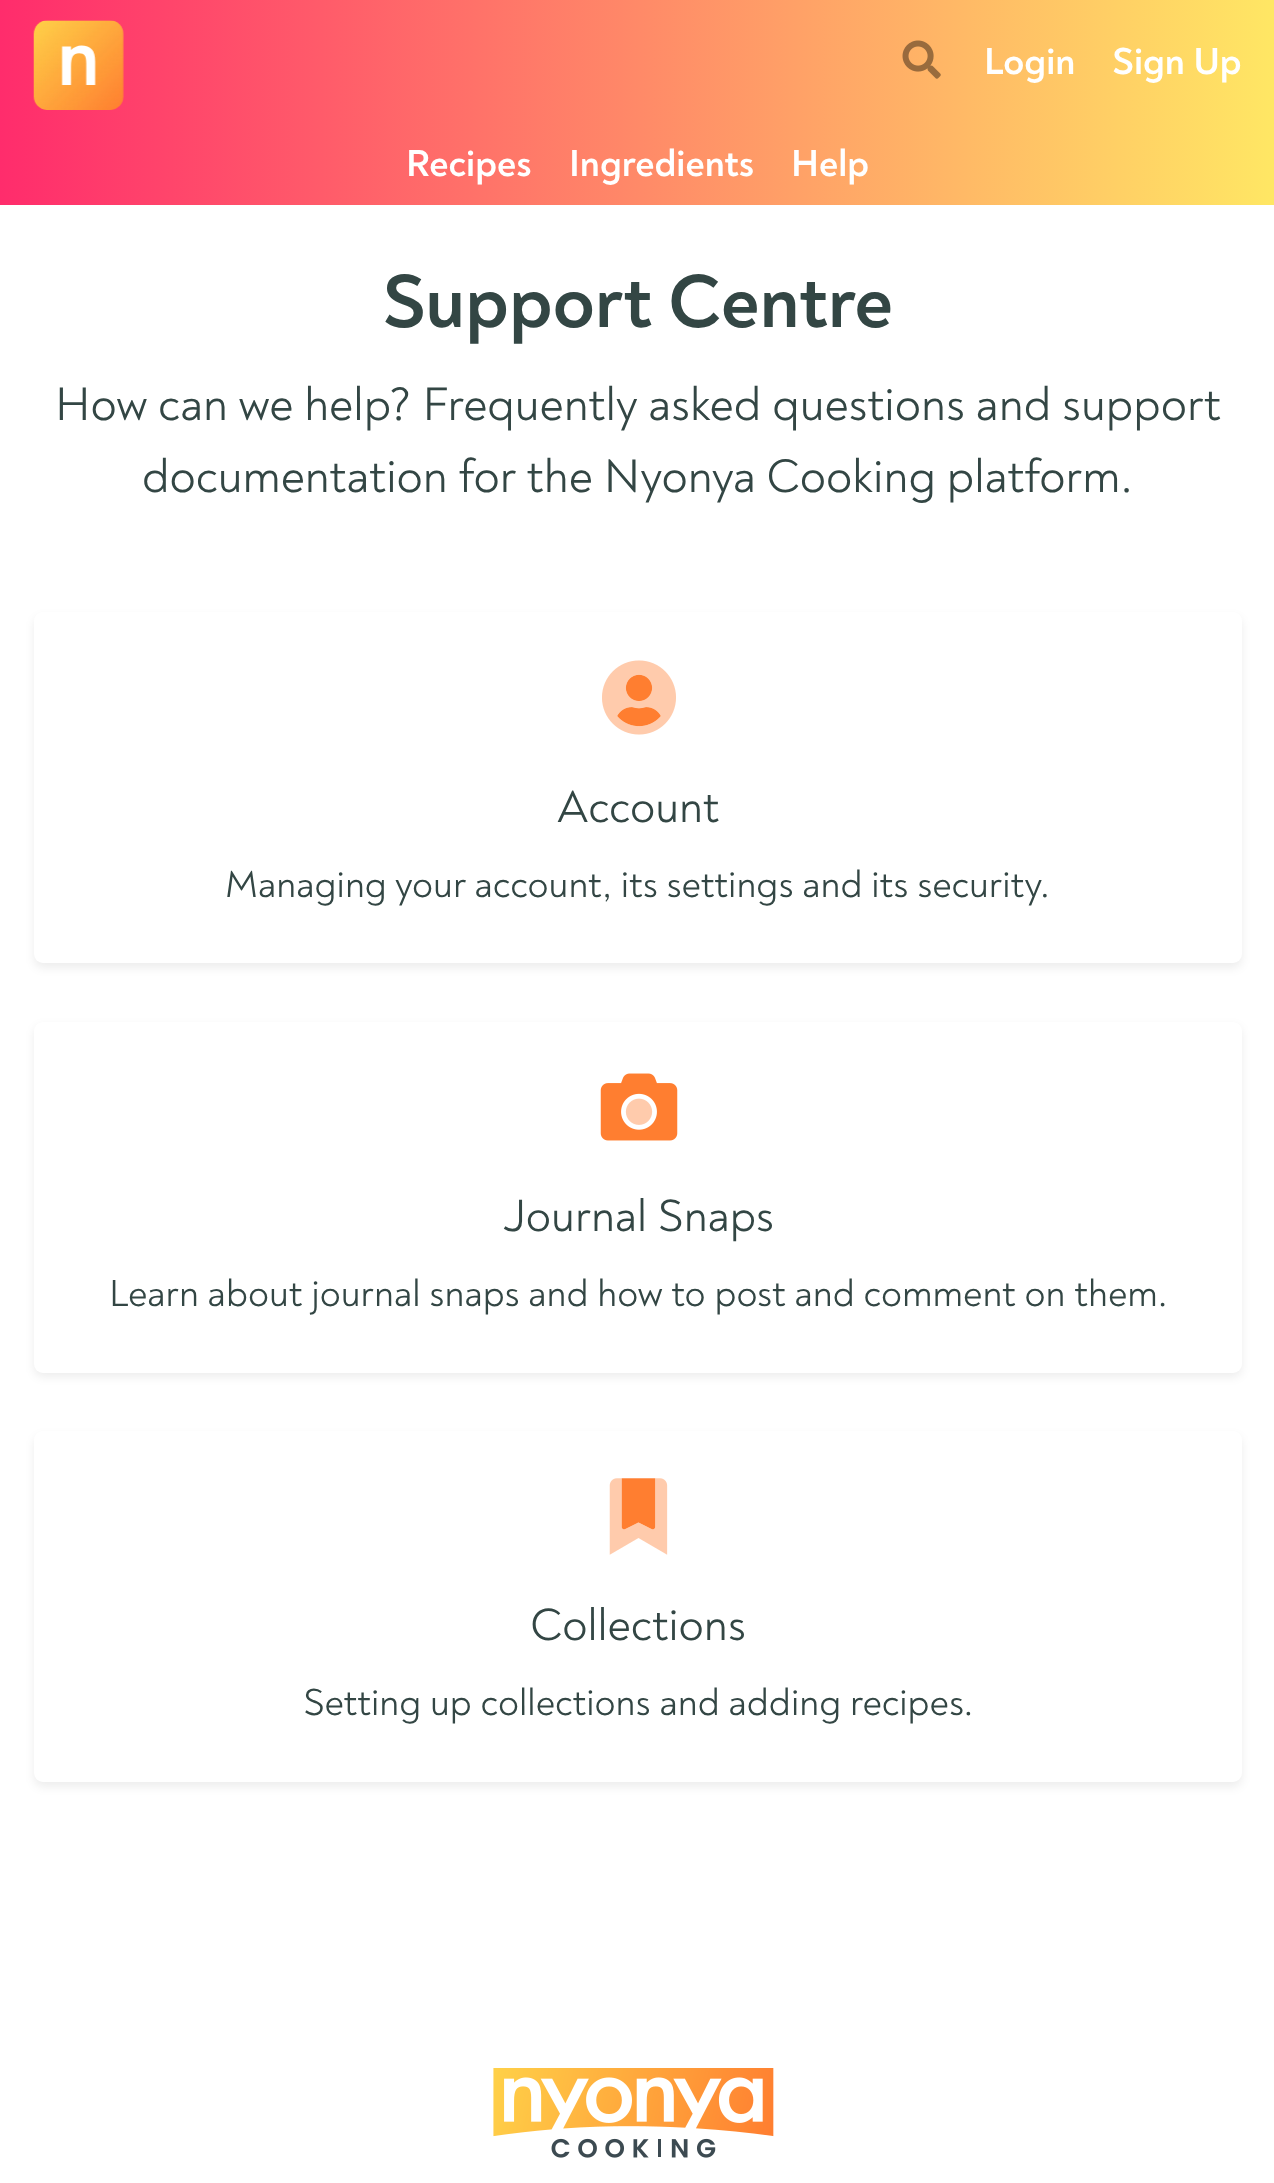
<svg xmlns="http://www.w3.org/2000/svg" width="1274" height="2183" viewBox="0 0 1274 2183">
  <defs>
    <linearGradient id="g1" gradientUnits="userSpaceOnUse" x1="0" y1="102" x2="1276" y2="102"><stop offset="0" stop-color="rgb(255,44,108)"/><stop offset="1" stop-color="rgb(255,231,100)"/></linearGradient>
  </defs>
  <rect width="100%" height="100%" fill="rgb(255,255,255)"/>
  <rect x="0" y="0" width="1274" height="205" fill="url(#g1)"/>
  <image x="33" y="20" width="91" height="90" href="pic1.png"/>
  <image x="902" y="40" width="39" height="39" href="pic2.png"/>
  <g font-family="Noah" font-size="38.25" fill="rgb(255,255,255)">
    <text x="984" y="74">Login</text>
    <text x="1112" y="74">Sign Up</text>
    <text x="406" y="176">Recipes</text>
    <text x="569" y="176">Ingredients</text>
    <text x="791" y="176">Help</text>
  </g>
  <text x="382" y="327" font-family="Noah" font-size="76.5" fill="rgb(51,70,68)">Support Centre</text>
  <g font-family="'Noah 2'" font-size="47.8" fill="rgb(51,70,68)">
    <text x="55" y="420">How can we help? Frequently asked questions and support</text>
    <text x="142" y="492">documentation for the Nyonya Cooking platform.</text>
  </g>
  <rect x="34" y="617" width="1208" height="351" rx="9" fill="rgba(0,0,0,0.07)" filter="blur(5px)"/>
  <rect x="34" y="612" width="1208" height="351" rx="9" fill="rgb(255,255,255)"/>
  <image x="602" y="660" width="74" height="75" href="pic3.png"/>
  <text x="557" y="822" font-family="'Noah 2'" font-size="46" fill="rgb(51,70,68)">Account</text>
  <text x="225" y="897" font-family="'Noah 2'" font-size="38.25" fill="rgb(51,70,68)">Managing your account, its settings and its security.</text>
  <rect x="34" y="1026" width="1208" height="351" rx="9" fill="rgba(0,0,0,0.07)" filter="blur(5px)"/>
  <rect x="34" y="1022" width="1208" height="351" rx="9" fill="rgb(255,255,255)"/>
  <image x="600" y="1073" width="78" height="68" href="pic4.png"/>
  <text x="503" y="1231" font-family="'Noah 2'" font-size="46" fill="rgb(51,70,68)">Journal Snaps</text>
  <text x="109" y="1306" font-family="'Noah 2'" font-size="38.25" fill="rgb(51,70,68)">Learn about journal snaps and how to post and comment on them.</text>
  <rect x="34" y="1436" width="1208" height="351" rx="9" fill="rgba(0,0,0,0.07)" filter="blur(5px)"/>
  <rect x="34" y="1431" width="1208" height="351" rx="9" fill="rgb(255,255,255)"/>
  <image x="609" y="1478" width="59" height="77" href="pic5.png"/>
  <text x="530" y="1640" font-family="'Noah 2'" font-size="46" fill="rgb(51,70,68)">Collections</text>
  <text x="303" y="1715" font-family="'Noah 2'" font-size="38.25" fill="rgb(51,70,68)">Setting up collections and adding recipes.</text>
  <image x="493" y="2068" width="281" height="90" href="pic6.png"/>
</svg>
